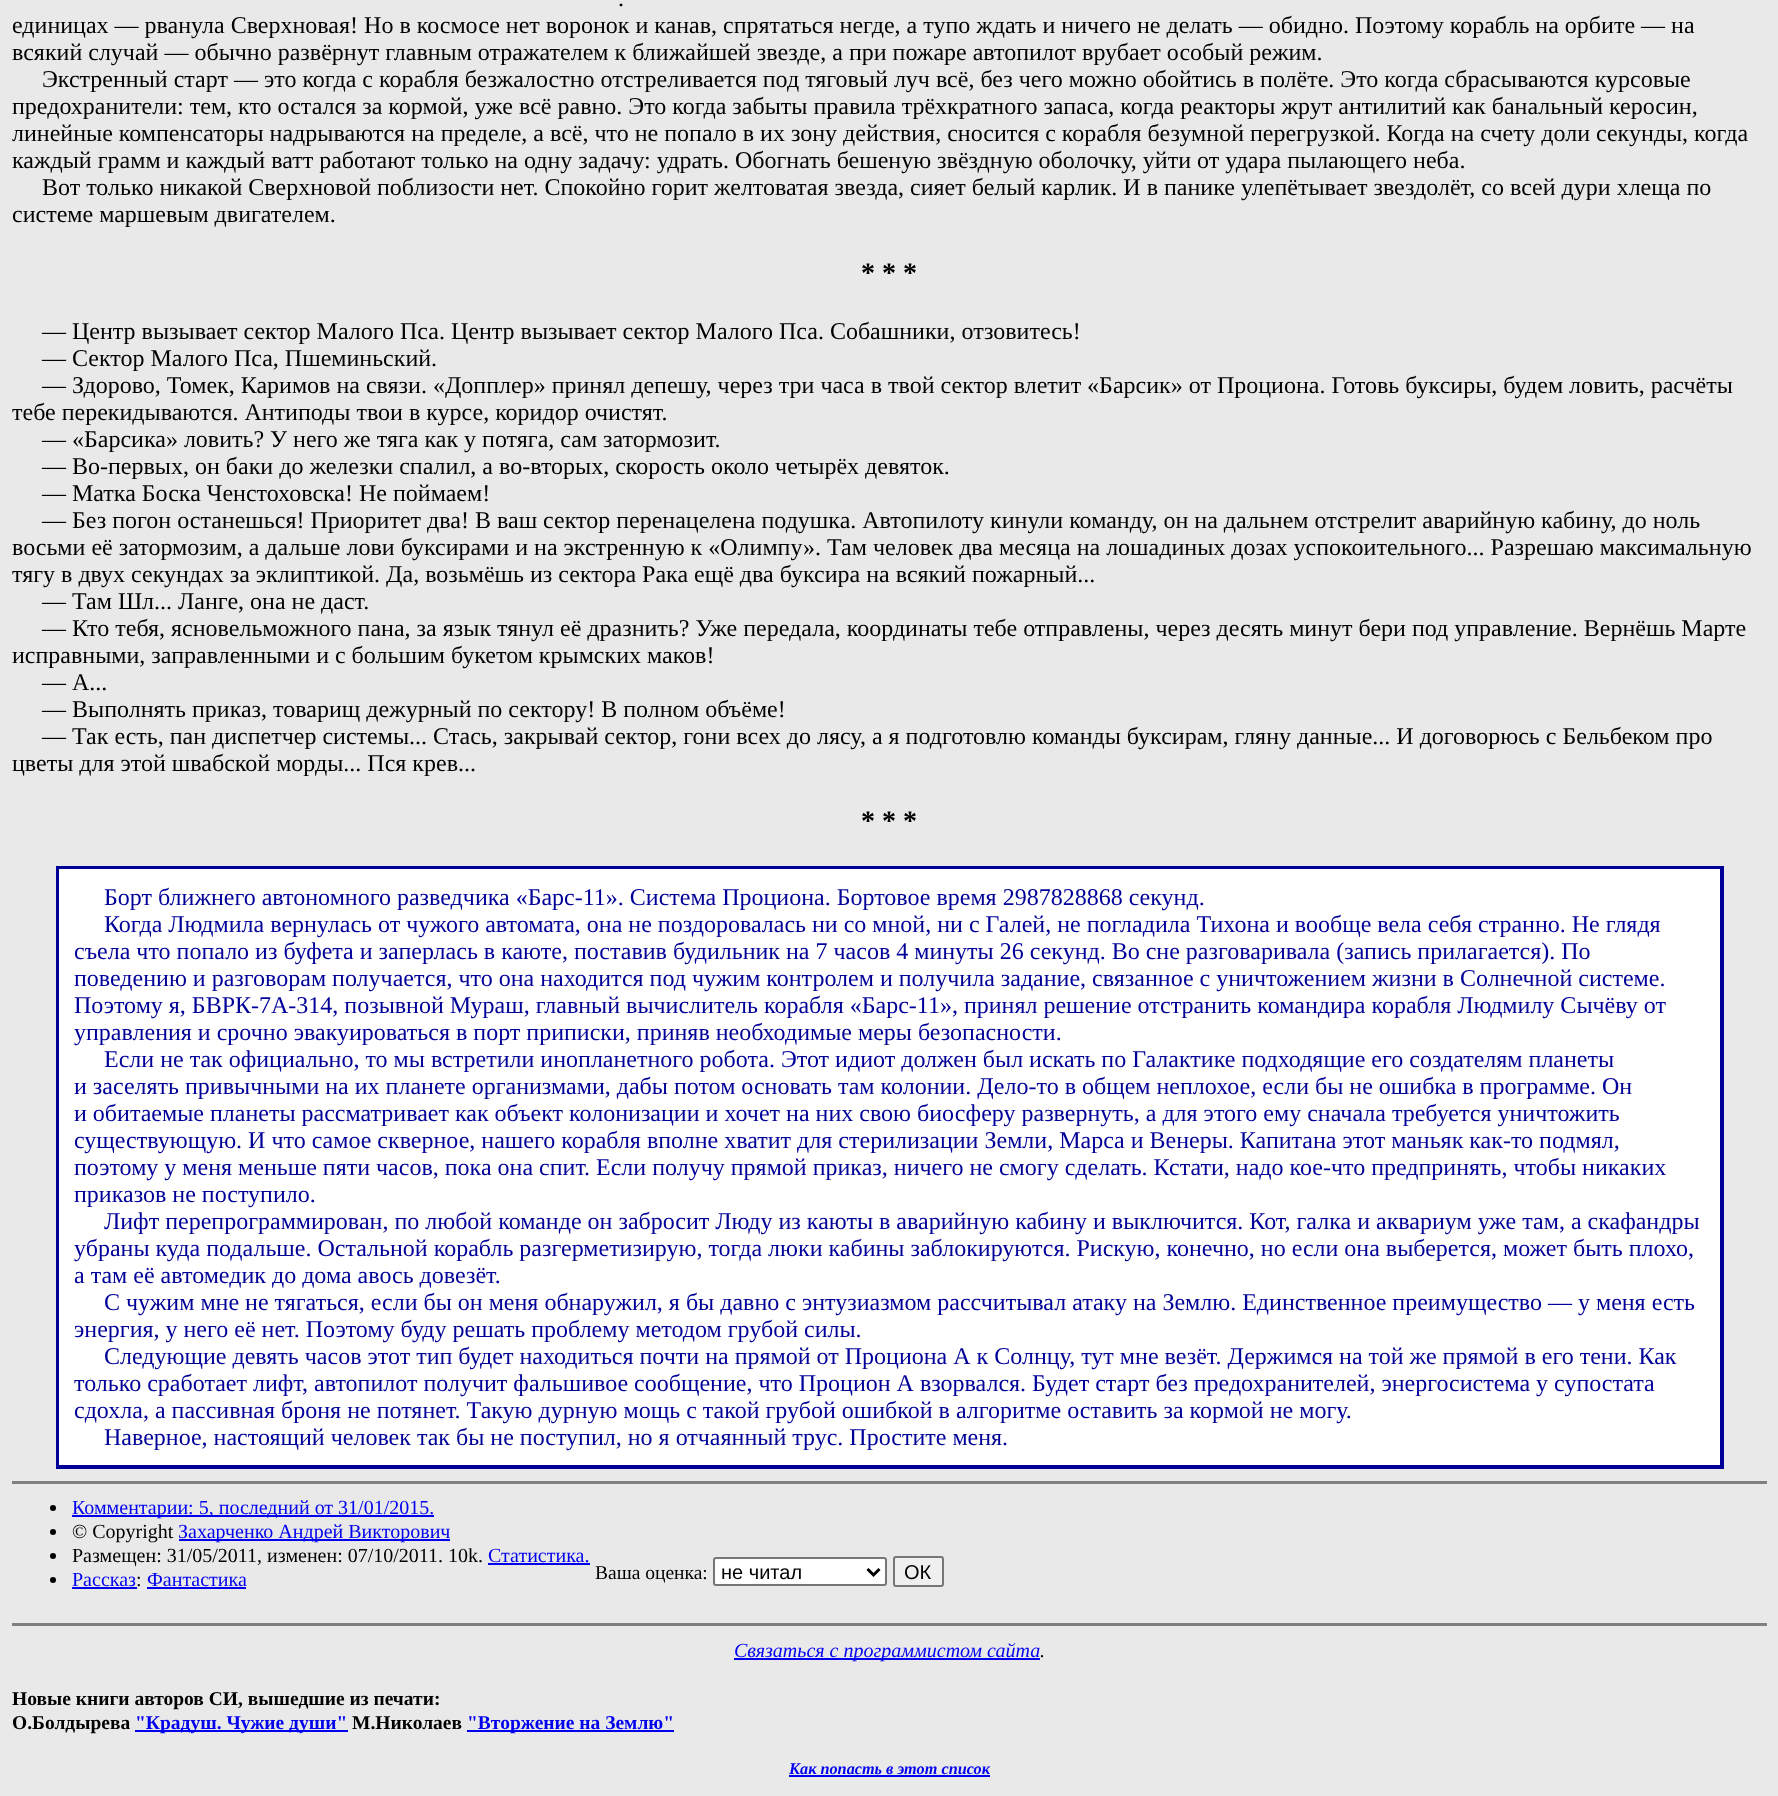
<svg xmlns="http://www.w3.org/2000/svg" width="1778" height="1796" viewBox="0 0 1778 1796">
  <rect width="100%" height="100%" fill="rgb(233,233,233)"/>
  <g font-family="Liberation Serif" font-size="24" fill="rgb(0,0,0)">
    <text x="618" y="6">.</text>
    <text>
      <tspan x="12" y="33">единицах — рванула Сверхновая! Но в космосе нет воронок и канав, спрятаться негде, а тупо ждать и ничего не делать — обидно. Поэтому корабль на орбите — на</tspan>
      <tspan x="12" y="60">всякий случай — обычно развёрнут главным отражателем к ближайшей звезде, а при пожаре автопилот врубает особый режим.</tspan>
    </text>
    <text x="42" y="87">Экстренный старт — это когда с корабля безжалостно отстреливается под тяговый луч всё, без чего можно обойтись в полёте. Это когда сбрасываются курсовые</text>
    <text>
      <tspan x="12" y="114">предохранители: тем, кто остался за кормой, уже всё равно. Это когда забыты правила трёхкратного запаса, когда реакторы жрут антилитий как банальный керосин,</tspan>
      <tspan x="12" y="141">линейные компенсаторы надрываются на пределе, а всё, что не попало в их зону действия, сносится с корабля безумной перегрузкой. Когда на счету доли секунды, когда</tspan>
      <tspan x="12" y="168">каждый грамм и каждый ватт работают только на одну задачу: удрать. Обогнать бешеную звёздную оболочку, уйти от удара пылающего неба.</tspan>
    </text>
    <text x="42" y="195">Вот только никакой Сверхновой поблизости нет. Спокойно горит желтоватая звезда, сияет белый карлик. И в панике улепётывает звездолёт, со всей дури хлеща по</text>
    <text x="12" y="222">системе маршевым двигателем.</text>
  </g>
  <text x="861" y="282" font-family="Liberation Serif" font-size="28" font-weight="bold" fill="rgb(0,0,0)">* * *</text>
  <g font-family="Liberation Serif" font-size="24" fill="rgb(0,0,0)">
    <text>
      <tspan x="42" y="339">— Центр вызывает сектор Малого Пса. Центр вызывает сектор Малого Пса. Собашники, отзовитесь!</tspan>
      <tspan x="42" y="366">— Сектор Малого Пса, Пшеминьский.</tspan>
      <tspan x="42" y="393">— Здорово, Томек, Каримов на связи. «Допплер» принял депешу, через три часа в твой сектор влетит «Барсик» от Проциона. Готовь буксиры, будем ловить, расчёты</tspan>
    </text>
    <text x="12" y="420">тебе перекидываются. Антиподы твои в курсе, коридор очистят.</text>
    <text>
      <tspan x="42" y="447">— «Барсика» ловить? У него же тяга как у потяга, сам затормозит.</tspan>
      <tspan x="42" y="474">— Во-первых, он баки до железки спалил, а во-вторых, скорость около четырёх девяток.</tspan>
      <tspan x="42" y="501">— Матка Боска Ченстоховска! Не поймаем!</tspan>
      <tspan x="42" y="528">— Без погон останешься! Приоритет два! В ваш сектор перенацелена подушка. Автопилоту кинули команду, он на дальнем отстрелит аварийную кабину, до ноль</tspan>
    </text>
    <text>
      <tspan x="12" y="555">восьми её затормозим, а дальше лови буксирами и на экстренную к «Олимпу». Там человек два месяца на лошадиных дозах успокоительного... Разрешаю максимальную</tspan>
      <tspan x="12" y="582">тягу в двух секундах за эклиптикой. Да, возьмёшь из сектора Рака ещё два буксира на всякий пожарный...</tspan>
    </text>
    <text>
      <tspan x="42" y="609">— Там Шл... Ланге, она не даст.</tspan>
      <tspan x="42" y="636">— Кто тебя, ясновельможного пана, за язык тянул её дразнить? Уже передала, координаты тебе отправлены, через десять минут бери под управление. Вернёшь Марте</tspan>
    </text>
    <text x="12" y="663">исправными, заправленными и с большим букетом крымских маков!</text>
    <text>
      <tspan x="42" y="690">— А...</tspan>
      <tspan x="42" y="717">— Выполнять приказ, товарищ дежурный по сектору! В полном объёме!</tspan>
      <tspan x="42" y="744">— Так есть, пан диспетчер системы... Стась, закрывай сектор, гони всех до лясу, а я подготовлю команды буксирам, гляну данные... И договорюсь с Бельбеком про</tspan>
    </text>
    <text x="12" y="771">цветы для этой швабской морды... Пся крев...</text>
  </g>
  <text x="861" y="830" font-family="Liberation Serif" font-size="28" font-weight="bold" fill="rgb(0,0,0)">* * *</text>
  <rect x="59" y="869" width="1661" height="596" fill="rgb(255,255,255)"/>
  <rect x="57" y="867" width="1666" height="601" fill="none" stroke="rgb(0,0,153)" stroke-width="2"/>
  <rect x="58" y="868" width="1663" height="598" fill="none" stroke="rgb(0,0,153)" stroke-width="2"/>
  <g font-family="Liberation Serif" font-size="24" fill="rgb(0,0,153)">
    <text>
      <tspan x="104" y="905">Борт ближнего автономного разведчика «Барс-11». Система Проциона. Бортовое время 2987828868 секунд.</tspan>
      <tspan x="104" y="932">Когда Людмила вернулась от чужого автомата, она не поздоровалась ни со мной, ни с Галей, не погладила Тихона и вообще вела себя странно. Не глядя</tspan>
    </text>
    <text>
      <tspan x="74" y="959">съела что попало из буфета и заперлась в каюте, поставив будильник на 7 часов 4 минуты 26 секунд. Во сне разговаривала (запись прилагается). По</tspan>
      <tspan x="74" y="986">поведению и разговорам получается, что она находится под чужим контролем и получила задание, связанное с уничтожением жизни в Солнечной системе.</tspan>
      <tspan x="74" y="1013">Поэтому я, БВРК-7А-314, позывной Мураш, главный вычислитель корабля «Барс-11», принял решение отстранить командира корабля Людмилу Сычёву от</tspan>
      <tspan x="74" y="1040">управления и срочно эвакуироваться в порт приписки, приняв необходимые меры безопасности.</tspan>
    </text>
    <text x="104" y="1067">Если не так официально, то мы встретили инопланетного робота. Этот идиот должен был искать по Галактике подходящие его создателям планеты</text>
    <text>
      <tspan x="74" y="1094">и заселять привычными на их планете организмами, дабы потом основать там колонии. Дело-то в общем неплохое, если бы не ошибка в программе. Он</tspan>
      <tspan x="74" y="1121">и обитаемые планеты рассматривает как объект колонизации и хочет на них свою биосферу развернуть, а для этого ему сначала требуется уничтожить</tspan>
      <tspan x="74" y="1148">существующую. И что самое скверное, нашего корабля вполне хватит для стерилизации Земли, Марса и Венеры. Капитана этот маньяк как-то подмял,</tspan>
      <tspan x="74" y="1175">поэтому у меня меньше пяти часов, пока она спит. Если получу прямой приказ, ничего не смогу сделать. Кстати, надо кое-что предпринять, чтобы никаких</tspan>
      <tspan x="74" y="1202">приказов не поступило.</tspan>
    </text>
    <text x="104" y="1229">Лифт перепрограммирован, по любой команде он забросит Люду из каюты в аварийную кабину и выключится. Кот, галка и аквариум уже там, а скафандры</text>
    <text>
      <tspan x="74" y="1256">убраны куда подальше. Остальной корабль разгерметизирую, тогда люки кабины заблокируются. Рискую, конечно, но если она выберется, может быть плохо,</tspan>
      <tspan x="74" y="1283">а там её автомедик до дома авось довезёт.</tspan>
    </text>
    <text x="104" y="1310">С чужим мне не тягаться, если бы он меня обнаружил, я бы давно с энтузиазмом рассчитывал атаку на Землю. Единственное преимущество — у меня есть</text>
    <text x="74" y="1337">энергия, у него её нет. Поэтому буду решать проблему методом грубой силы.</text>
    <text x="104" y="1364">Следующие девять часов этот тип будет находиться почти на прямой от Проциона А к Солнцу, тут мне везёт. Держимся на той же прямой в его тени. Как</text>
    <text>
      <tspan x="74" y="1391">только сработает лифт, автопилот получит фальшивое сообщение, что Процион А взорвался. Будет старт без предохранителей, энергосистема у супостата</tspan>
      <tspan x="74" y="1418">сдохла, а пассивная броня не потянет. Такую дурную мощь с такой грубой ошибкой в алгоритме оставить за кормой не могу.</tspan>
    </text>
    <text x="104" y="1445">Наверное, настоящий человек так бы не поступил, но я отчаянный трус. Простите меня.</text>
  </g>
  <rect x="12" y="1481" width="1755" height="3" fill="rgb(128,128,128)"/>
  <circle cx="53" cy="1508" r="3" fill="rgb(0,0,0)"/>
  <rect x="72" y="1515" width="362" height="2" fill="rgb(0,0,238)"/>
  <text x="72" y="1514" font-family="Liberation Serif" font-size="20" fill="rgb(0,0,238)">Комментарии: 5, последний от 31/01/2015.</text>
  <circle cx="53" cy="1532" r="3" fill="rgb(0,0,0)"/>
  <text x="72" y="1538" font-family="Liberation Serif" font-size="20" fill="rgb(0,0,0)">© Copyright</text>
  <rect x="179" y="1539" width="271" height="2" fill="rgb(0,0,238)"/>
  <text x="178" y="1538" font-family="Liberation Serif" font-size="20" fill="rgb(0,0,238)">Захарченко Андрей Викторович</text>
  <circle cx="53" cy="1556" r="3" fill="rgb(0,0,0)"/>
  <text x="72" y="1562" font-family="Liberation Serif" font-size="20" fill="rgb(0,0,0)">Размещен: 31/05/2011, изменен: 07/10/2011. 10k.</text>
  <text x="488" y="1562" font-family="Liberation Serif" font-size="20" fill="rgb(0,0,238)">Статистика.</text>
  <rect x="488" y="1563" width="102" height="2" fill="rgb(0,0,238)"/>
  <circle cx="53" cy="1580" r="3" fill="rgb(0,0,0)"/>
  <text x="72" y="1586" font-family="Liberation Serif" font-size="20" fill="rgb(0,0,238)">Рассказ</text>
  <rect x="72" y="1587" width="65" height="2" fill="rgb(0,0,238)"/>
  <text x="136" y="1586" font-family="Liberation Serif" font-size="20" fill="rgb(0,0,0)">:</text>
  <text x="147" y="1586" font-family="Liberation Serif" font-size="20" fill="rgb(0,0,238)">Фантастика</text>
  <rect x="147" y="1587" width="99" height="2" fill="rgb(0,0,238)"/>
  <text x="595" y="1579" font-family="Liberation Serif" font-size="19.5" fill="rgb(0,0,0)">Ваша оценка:</text>
  <rect x="714" y="1558" width="172" height="27" rx="2" fill="rgb(255,255,255)" stroke="rgb(118,118,118)" stroke-width="2"/>
  <path d="M867.5 1569L873.5 1575L879.5 1569" fill="none" stroke="rgb(0,0,0)" stroke-width="3"/>
  <text x="721" y="1579" font-family="Liberation Sans" font-size="20" fill="rgb(0,0,0)">не читал</text>
  <rect x="894" y="1557" width="49" height="29" rx="2" fill="rgb(239,239,239)" stroke="rgb(118,118,118)" stroke-width="2"/>
  <text x="904" y="1579" font-family="Liberation Sans" font-size="20" fill="rgb(0,0,0)">ОК</text>
  <rect x="12" y="1623" width="1755" height="3" fill="rgb(128,128,128)"/>
  <rect x="734" y="1658" width="306" height="2" fill="rgb(0,0,238)"/>
  <text x="734" y="1657" font-family="Liberation Serif" font-size="20" font-style="italic" fill="rgb(0,0,238)">Связаться с программистом сайта</text>
  <text x="1040" y="1657" font-family="Liberation Serif" font-size="20" font-style="italic" fill="rgb(0,0,0)">.</text>
  <g font-family="Liberation Serif" font-size="19.5" font-weight="bold" fill="rgb(0,0,0)">
    <text>
      <tspan x="12" y="1705">Новые книги авторов СИ, вышедшие из печати:</tspan>
      <tspan x="12" y="1729">О.Болдырева</tspan>
    </text>
  </g>
  <rect x="135" y="1730" width="213" height="2" fill="rgb(0,0,238)"/>
  <text x="135" y="1729" font-family="Liberation Serif" font-size="19.5" font-weight="bold" fill="rgb(0,0,238)">"Крадуш. Чужие души"</text>
  <text x="352" y="1729" font-family="Liberation Serif" font-size="19.5" font-weight="bold" fill="rgb(0,0,0)">М.Николаев</text>
  <rect x="467" y="1730" width="207" height="2" fill="rgb(0,0,238)"/>
  <text x="467" y="1729" font-family="Liberation Serif" font-size="19.5" font-weight="bold" fill="rgb(0,0,238)">"Вторжение на Землю"</text>
  <text x="789" y="1774" font-family="Liberation Serif" font-size="16.25" font-weight="bold" font-style="italic" fill="rgb(0,0,238)">Как попасть в этoт список</text>
  <rect x="789" y="1775" width="201" height="2" fill="rgb(0,0,238)"/>
</svg>
